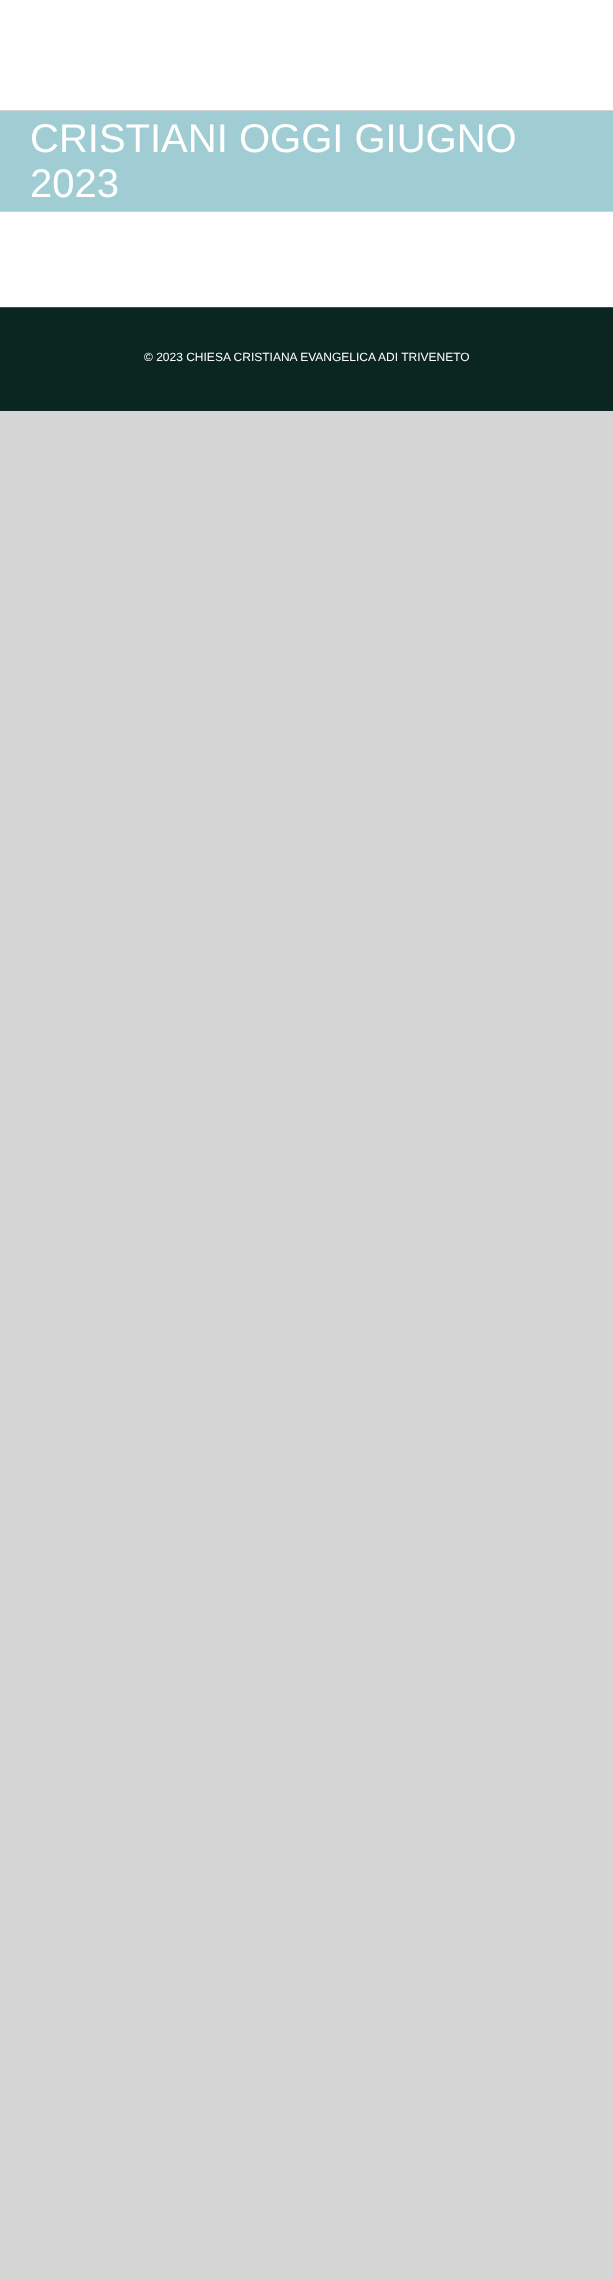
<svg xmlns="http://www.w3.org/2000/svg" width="613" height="2279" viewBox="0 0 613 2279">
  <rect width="100%" height="100%" fill="rgb(215,214,214)"/>
  <rect x="0" y="0" width="613" height="307" fill="rgb(255,255,255)"/>
  <rect x="0" y="111" width="613" height="100" fill="rgb(160,205,211)"/>
  <rect x="0" y="110" width="613" height="1" fill="rgb(210,211,212)"/>
  <rect x="0" y="211" width="613" height="1" fill="rgb(210,211,212)"/>
  <g font-family="Liberation Sans" font-size="40" fill="rgb(255,255,255)">
    <text>
      <tspan x="30" y="152">CRISTIANI OGGI GIUGNO</tspan>
      <tspan x="30" y="197">2023</tspan>
    </text>
  </g>
  <rect x="0" y="308" width="613" height="103" fill="rgb(11,38,33)"/>
  <rect x="0" y="307" width="613" height="1" fill="rgb(75,76,77)"/>
  <text x="144" y="361" font-family="Liberation Sans" font-size="12" fill="rgb(255,255,255)">© 2023 CHIESA CRISTIANA EVANGELICA ADI TRIVENETO</text>
</svg>
